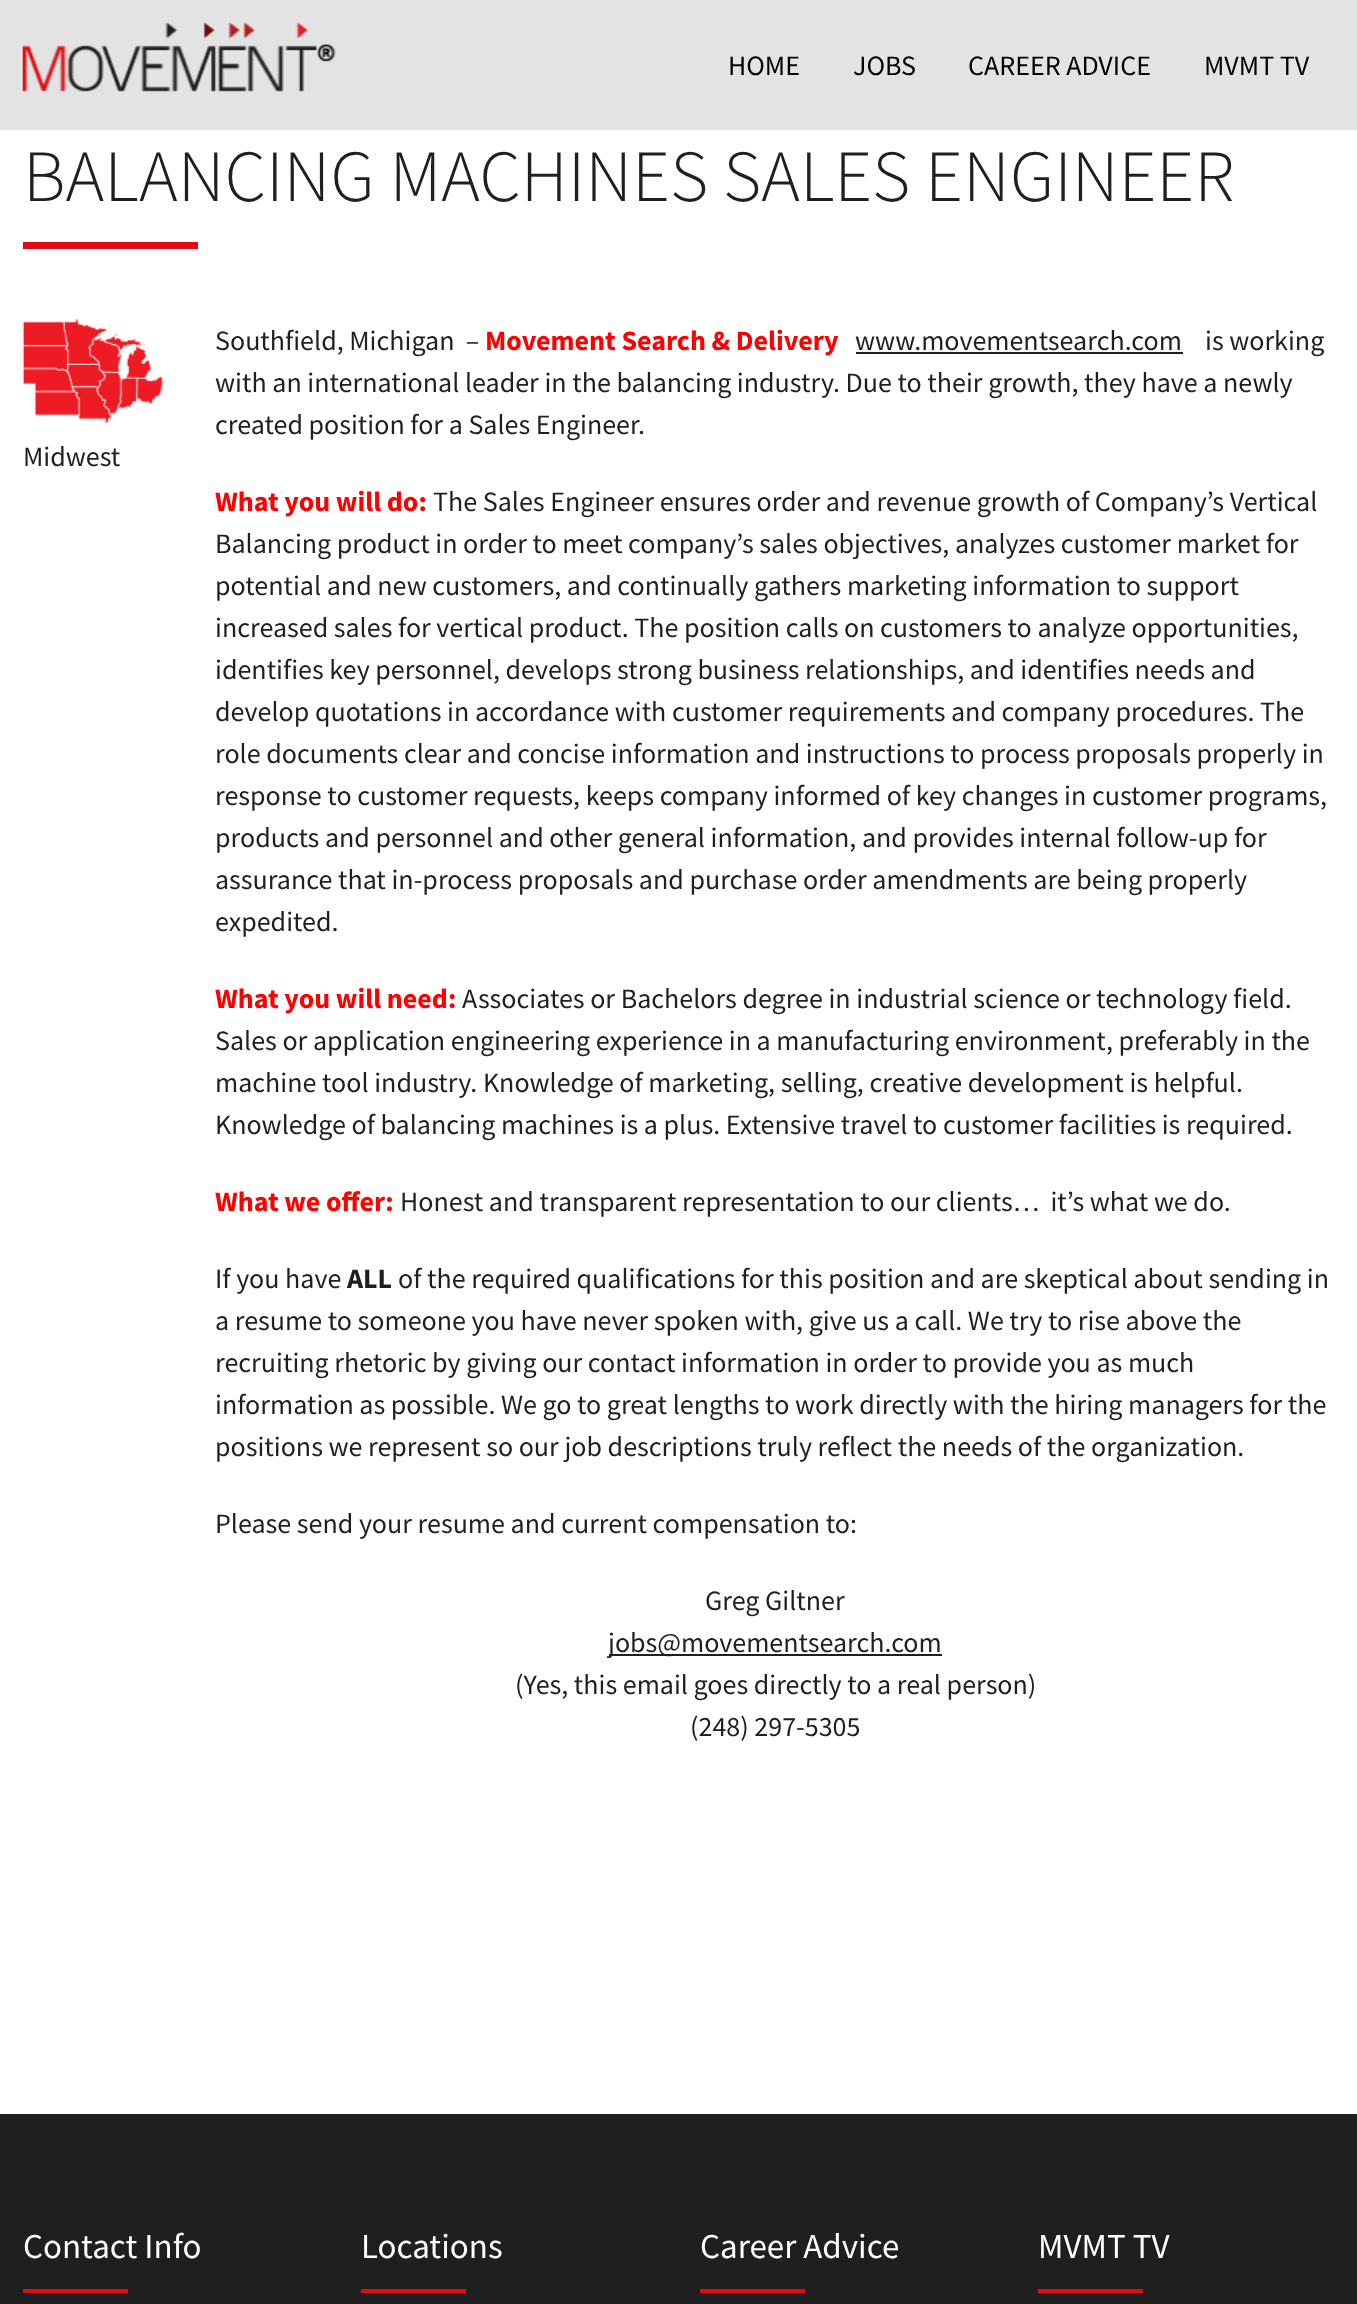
<svg xmlns="http://www.w3.org/2000/svg" width="1357" height="2304" viewBox="0 0 1357 2304">
  <rect width="100%" height="100%" fill="rgb(255,255,255)"/>
  <rect x="0" y="0" width="1357" height="130" fill="rgb(227,227,227)"/>
  <image x="22" y="22" width="314" height="70" href="pic1.png"/>
  <g font-family="Source Sans Pro" font-size="28" fill="rgb(0,0,0)">
    <text x="728" y="75">HOME</text>
    <text x="853" y="75">JOBS</text>
    <text x="968" y="75">CAREER ADVICE</text>
    <text x="1204" y="75">MVMT TV</text>
  </g>
  <text x="23" y="201" font-family="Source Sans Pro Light" font-size="73.5" font-weight="300" fill="rgb(32,31,31)">BALANCING MACHINES SALES ENGINEER</text>
  <rect x="23" y="242" width="175" height="7" fill="rgb(223,12,19)"/>
  <image x="22" y="318" width="141" height="106" href="pic2.png"/>
  <g font-family="Source Sans Pro" font-size="28" fill="rgb(32,31,31)">
    <text x="23" y="466">Midwest</text>
    <text x="215" y="350" xml:space="preserve">Southfield, Michigan  –</text>
  </g>
  <text x="485" y="350" font-family="Source Sans Pro" font-size="28" font-weight="bold" fill="rgb(255,0,0)">Movement Search &amp; Delivery</text>
  <text x="855" y="350" font-family="Source Sans Pro" font-size="28" fill="rgb(32,31,31)">www.movementsearch.com</text>
  <rect x="856" y="352" width="327" height="2" fill="rgb(32,31,31)"/>
  <g font-family="Source Sans Pro" font-size="28" fill="rgb(32,31,31)">
    <text x="1205" y="350">is working</text>
    <text>
      <tspan x="215" y="392">with an international leader in the balancing industry. Due to their growth, they have a newly</tspan>
      <tspan x="215" y="434">created position for a Sales Engineer.</tspan>
    </text>
  </g>
  <text x="215" y="511" font-family="Source Sans Pro" font-size="28" font-weight="bold" fill="rgb(255,0,0)">What you will do:</text>
  <g font-family="Source Sans Pro" font-size="28" fill="rgb(32,31,31)">
    <text x="433" y="511">The Sales Engineer ensures order and revenue growth of Company’s Vertical</text>
    <text>
      <tspan x="215" y="553">Balancing product in order to meet company’s sales objectives, analyzes customer market for</tspan>
      <tspan x="215" y="595">potential and new customers, and continually gathers marketing information to support</tspan>
      <tspan x="215" y="637">increased sales for vertical product. The position calls on customers to analyze opportunities,</tspan>
      <tspan x="215" y="679">identifies key personnel, develops strong business relationships, and identifies needs and</tspan>
      <tspan x="215" y="721">develop quotations in accordance with customer requirements and company procedures. The</tspan>
      <tspan x="215" y="763">role documents clear and concise information and instructions to process proposals properly in</tspan>
      <tspan x="215" y="805">response to customer requests, keeps company informed of key changes in customer programs,</tspan>
      <tspan x="215" y="847">products and personnel and other general information, and provides internal follow-up for</tspan>
      <tspan x="215" y="889">assurance that in-process proposals and purchase order amendments are being properly</tspan>
      <tspan x="215" y="931">expedited.</tspan>
    </text>
  </g>
  <text x="215" y="1008" font-family="Source Sans Pro" font-size="28" font-weight="bold" fill="rgb(255,0,0)">What you will need:</text>
  <g font-family="Source Sans Pro" font-size="28" fill="rgb(32,31,31)">
    <text x="462" y="1008">Associates or Bachelors degree in industrial science or technology field.</text>
    <text>
      <tspan x="215" y="1050">Sales or application engineering experience in a manufacturing environment, preferably in the</tspan>
      <tspan x="215" y="1092">machine tool industry. Knowledge of marketing, selling, creative development is helpful.</tspan>
      <tspan x="215" y="1134">Knowledge of balancing machines is a plus. Extensive travel to customer facilities is required.</tspan>
    </text>
  </g>
  <text x="215" y="1211" font-family="Source Sans Pro" font-size="28" font-weight="bold" fill="rgb(255,0,0)">What we offer:</text>
  <g font-family="Source Sans Pro" font-size="28" fill="rgb(32,31,31)">
    <text x="400" y="1211" xml:space="preserve">Honest and transparent representation to our clients…  it’s what we do.</text>
    <text x="215" y="1288">If you have</text>
  </g>
  <text x="347" y="1288" font-family="Source Sans Pro" font-size="28" font-weight="bold" fill="rgb(32,31,31)">ALL</text>
  <g font-family="Source Sans Pro" font-size="28" fill="rgb(32,31,31)">
    <text x="398" y="1288">of the required qualifications for this position and are skeptical about sending in</text>
    <text>
      <tspan x="215" y="1330">a resume to someone you have never spoken with, give us a call. We try to rise above the</tspan>
      <tspan x="215" y="1372">recruiting rhetoric by giving our contact information in order to provide you as much</tspan>
      <tspan x="215" y="1414">information as possible. We go to great lengths to work directly with the hiring managers for the</tspan>
      <tspan x="215" y="1456">positions we represent so our job descriptions truly reflect the needs of the organization.</tspan>
    </text>
    <text x="215" y="1533">Please send your resume and current compensation to:</text>
    <text x="705" y="1610">Greg Giltner</text>
  </g>
  <rect x="609" y="1654" width="333" height="2" fill="rgb(32,31,31)"/>
  <g font-family="Source Sans Pro" font-size="28" fill="rgb(32,31,31)">
    <text x="608" y="1652">jobs@movementsearch.com</text>
    <text x="515" y="1694">(Yes, this email goes directly to a real person)</text>
    <text x="690" y="1736">(248) 297-5305</text>
  </g>
  <rect x="0" y="2114" width="1357" height="190" fill="rgb(32,31,31)"/>
  <text x="23" y="2258" font-family="Source Sans Pro" font-size="35" fill="rgb(255,255,255)">Contact Info</text>
  <rect x="23" y="2289" width="105" height="4" fill="rgb(223,12,19)"/>
  <text x="361" y="2258" font-family="Source Sans Pro" font-size="35" fill="rgb(255,255,255)">Locations</text>
  <rect x="361" y="2289" width="105" height="4" fill="rgb(223,12,19)"/>
  <text x="700" y="2258" font-family="Source Sans Pro" font-size="35" fill="rgb(255,255,255)">Career Advice</text>
  <rect x="700" y="2289" width="105" height="4" fill="rgb(223,12,19)"/>
  <text x="1038" y="2258" font-family="Source Sans Pro" font-size="35" fill="rgb(255,255,255)">MVMT TV</text>
  <rect x="1038" y="2289" width="105" height="4" fill="rgb(223,12,19)"/>
</svg>
